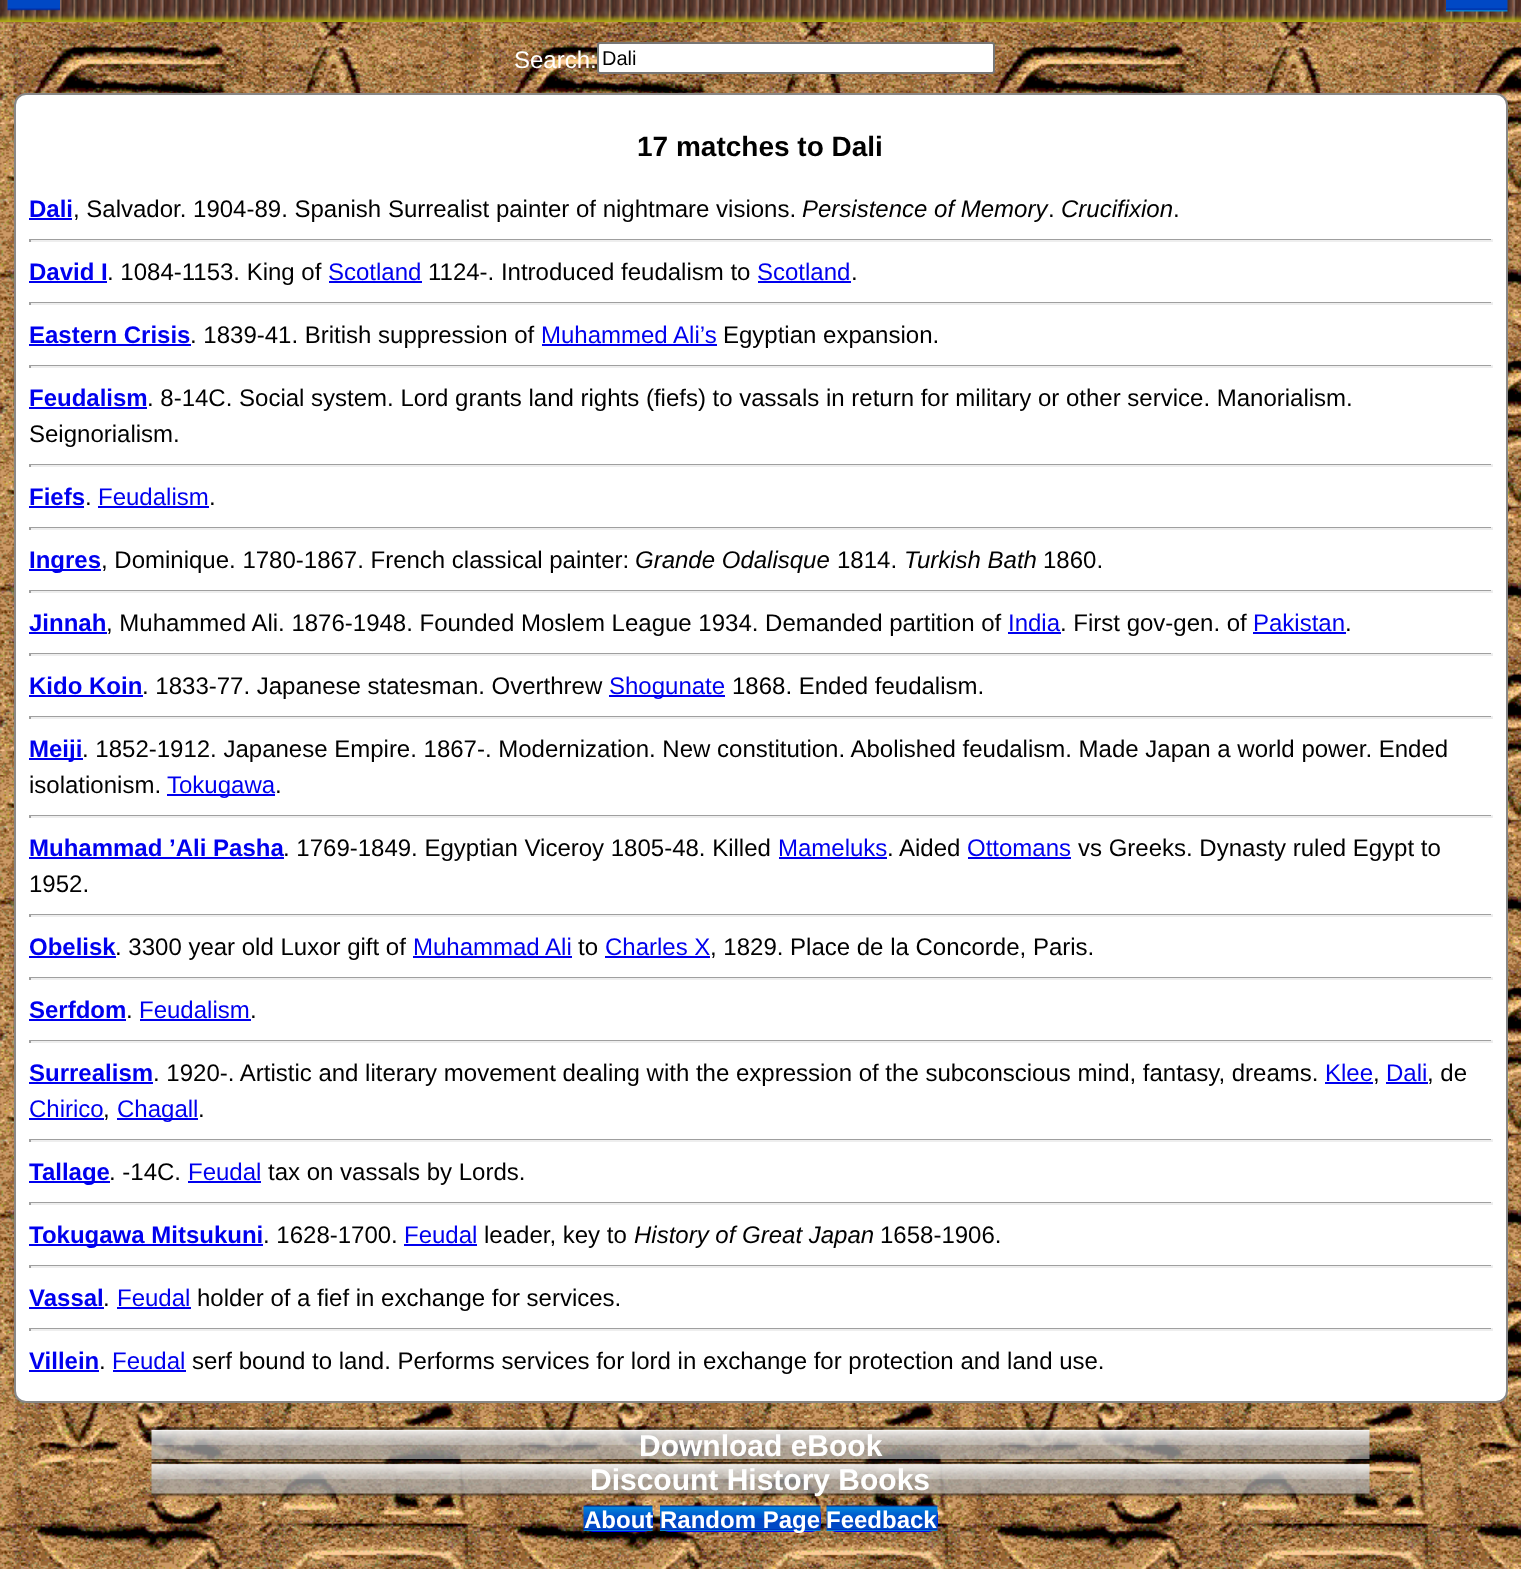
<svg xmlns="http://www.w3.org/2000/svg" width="1521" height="1569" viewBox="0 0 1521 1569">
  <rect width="100%" height="100%" fill="rgb(255,255,255)"/>
  <image x="0" y="22" width="1521" height="1547" href="pic1.png"/>
  <image x="0" y="0" width="1521" height="22" href="pic2.png"/>
  <image x="7" y="0" width="53" height="11" href="pic3.png"/>
  <image x="1446" y="0" width="62" height="12" href="pic4.png"/>
  <text x="514" y="68" font-family="Liberation Sans" font-size="24" fill="rgb(255,255,255)">Search:</text>
  <rect x="598" y="43" width="396" height="30" rx="2" fill="rgb(255,255,255)" stroke="rgb(118,118,118)" stroke-width="2"/>
  <text x="602" y="65" font-family="Liberation Sans" font-size="20" fill="rgb(0,0,0)">Dali</text>
  <rect x="15" y="94" width="1492" height="1308" rx="11" fill="rgb(255,255,255)" stroke="rgb(135,135,135)" stroke-width="2"/>
  <text x="637" y="156" font-family="Liberation Sans" font-size="28" font-weight="bold" fill="rgb(0,0,0)">17 matches to Dali</text>
  <text x="29" y="217" font-family="Liberation Sans" font-size="24" font-weight="bold" fill="rgb(0,0,238)">Dali</text>
  <rect x="29" y="218" width="43" height="2" fill="rgb(0,0,238)"/>
  <text x="73" y="217" font-family="Liberation Sans" font-size="24" fill="rgb(0,0,0)">, Salvador. 1904-89. Spanish Surrealist painter of nightmare visions.</text>
  <text x="802" y="217" font-family="Liberation Sans" font-size="24" font-style="italic" fill="rgb(0,0,0)">Persistence of Memory</text>
  <text x="1048" y="217" font-family="Liberation Sans" font-size="24" fill="rgb(0,0,0)">.</text>
  <text x="1061" y="217" font-family="Liberation Sans" font-size="24" font-style="italic" fill="rgb(0,0,0)">Crucifixion</text>
  <text x="1173" y="217" font-family="Liberation Sans" font-size="24" fill="rgb(0,0,0)">.</text>
  <rect x="29" y="239" width="1464" height="1" fill="rgb(159,159,159)"/>
  <rect x="1491" y="239" width="2" height="3" fill="rgb(238,238,238)"/>
  <rect x="29" y="240" width="1464" height="2" fill="rgb(238,238,238)"/>
  <rect x="29" y="239" width="2" height="3" fill="rgb(159,159,159)"/>
  <text x="29" y="280" font-family="Liberation Sans" font-size="24" font-weight="bold" fill="rgb(0,0,238)">David I</text>
  <rect x="29" y="281" width="78" height="2" fill="rgb(0,0,238)"/>
  <text x="107" y="280" font-family="Liberation Sans" font-size="24" fill="rgb(0,0,0)">. 1084-1153. King of</text>
  <text x="328" y="280" font-family="Liberation Sans" font-size="24" fill="rgb(0,0,238)">Scotland</text>
  <rect x="329" y="281" width="93" height="2" fill="rgb(0,0,238)"/>
  <text x="428" y="280" font-family="Liberation Sans" font-size="24" fill="rgb(0,0,0)">1124-. Introduced feudalism to</text>
  <text x="757" y="280" font-family="Liberation Sans" font-size="24" fill="rgb(0,0,238)">Scotland</text>
  <rect x="758" y="281" width="93" height="2" fill="rgb(0,0,238)"/>
  <text x="851" y="280" font-family="Liberation Sans" font-size="24" fill="rgb(0,0,0)">.</text>
  <rect x="29" y="302" width="1464" height="1" fill="rgb(159,159,159)"/>
  <rect x="1491" y="302" width="2" height="3" fill="rgb(238,238,238)"/>
  <rect x="29" y="303" width="1464" height="2" fill="rgb(238,238,238)"/>
  <rect x="29" y="302" width="2" height="3" fill="rgb(159,159,159)"/>
  <text x="29" y="343" font-family="Liberation Sans" font-size="24" font-weight="bold" fill="rgb(0,0,238)">Eastern Crisis</text>
  <rect x="29" y="344" width="162" height="2" fill="rgb(0,0,238)"/>
  <text x="190" y="343" font-family="Liberation Sans" font-size="24" fill="rgb(0,0,0)">. 1839-41. British suppression of</text>
  <text x="541" y="343" font-family="Liberation Sans" font-size="24" fill="rgb(0,0,238)">Muhammed Ali’s</text>
  <rect x="542" y="344" width="175" height="2" fill="rgb(0,0,238)"/>
  <text x="723" y="343" font-family="Liberation Sans" font-size="24" fill="rgb(0,0,0)">Egyptian expansion.</text>
  <rect x="29" y="365" width="1464" height="1" fill="rgb(159,159,159)"/>
  <rect x="1491" y="365" width="2" height="3" fill="rgb(238,238,238)"/>
  <rect x="29" y="366" width="1464" height="2" fill="rgb(238,238,238)"/>
  <rect x="29" y="365" width="2" height="3" fill="rgb(159,159,159)"/>
  <text x="29" y="406" font-family="Liberation Sans" font-size="24" font-weight="bold" fill="rgb(0,0,238)">Feudalism</text>
  <rect x="29" y="407" width="118" height="2" fill="rgb(0,0,238)"/>
  <g font-family="Liberation Sans" font-size="24" fill="rgb(0,0,0)">
    <text x="147" y="406">. 8-14C. Social system. Lord grants land rights (fiefs) to vassals in return for military or other service. Manorialism.</text>
    <text x="29" y="442">Seignorialism.</text>
  </g>
  <rect x="29" y="464" width="1464" height="1" fill="rgb(159,159,159)"/>
  <rect x="1491" y="464" width="2" height="3" fill="rgb(238,238,238)"/>
  <rect x="29" y="465" width="1464" height="2" fill="rgb(238,238,238)"/>
  <rect x="29" y="464" width="2" height="3" fill="rgb(159,159,159)"/>
  <text x="29" y="505" font-family="Liberation Sans" font-size="24" font-weight="bold" fill="rgb(0,0,238)">Fiefs</text>
  <rect x="29" y="506" width="55" height="2" fill="rgb(0,0,238)"/>
  <text x="85" y="505" font-family="Liberation Sans" font-size="24" fill="rgb(0,0,0)">.</text>
  <text x="98" y="505" font-family="Liberation Sans" font-size="24" fill="rgb(0,0,238)">Feudalism</text>
  <rect x="98" y="506" width="111" height="2" fill="rgb(0,0,238)"/>
  <text x="209" y="505" font-family="Liberation Sans" font-size="24" fill="rgb(0,0,0)">.</text>
  <rect x="29" y="527" width="1464" height="1" fill="rgb(159,159,159)"/>
  <rect x="1491" y="527" width="2" height="3" fill="rgb(238,238,238)"/>
  <rect x="29" y="528" width="1464" height="2" fill="rgb(238,238,238)"/>
  <rect x="29" y="527" width="2" height="3" fill="rgb(159,159,159)"/>
  <rect x="29" y="569" width="72" height="2" fill="rgb(0,0,238)"/>
  <text x="29" y="568" font-family="Liberation Sans" font-size="24" font-weight="bold" fill="rgb(0,0,238)">Ingres</text>
  <text x="101" y="568" font-family="Liberation Sans" font-size="24" fill="rgb(0,0,0)">, Dominique. 1780-1867. French classical painter:</text>
  <text x="635" y="568" font-family="Liberation Sans" font-size="24" font-style="italic" fill="rgb(0,0,0)">Grande Odalisque</text>
  <text x="837" y="568" font-family="Liberation Sans" font-size="24" fill="rgb(0,0,0)">1814.</text>
  <text x="904" y="568" font-family="Liberation Sans" font-size="24" font-style="italic" fill="rgb(0,0,0)">Turkish Bath</text>
  <text x="1043" y="568" font-family="Liberation Sans" font-size="24" fill="rgb(0,0,0)">1860.</text>
  <rect x="29" y="590" width="1464" height="1" fill="rgb(159,159,159)"/>
  <rect x="1491" y="590" width="2" height="3" fill="rgb(238,238,238)"/>
  <rect x="29" y="591" width="1464" height="2" fill="rgb(238,238,238)"/>
  <rect x="29" y="590" width="2" height="3" fill="rgb(159,159,159)"/>
  <text x="29" y="631" font-family="Liberation Sans" font-size="24" font-weight="bold" fill="rgb(0,0,238)">Jinnah</text>
  <rect x="29" y="632" width="78" height="2" fill="rgb(0,0,238)"/>
  <text x="106" y="631" font-family="Liberation Sans" font-size="24" fill="rgb(0,0,0)">, Muhammed Ali. 1876-1948. Founded Moslem League 1934. Demanded partition of</text>
  <text x="1008" y="631" font-family="Liberation Sans" font-size="24" fill="rgb(0,0,238)">India</text>
  <rect x="1008" y="632" width="53" height="2" fill="rgb(0,0,238)"/>
  <text x="1060" y="631" font-family="Liberation Sans" font-size="24" fill="rgb(0,0,0)">. First gov-gen. of</text>
  <text x="1253" y="631" font-family="Liberation Sans" font-size="24" fill="rgb(0,0,238)">Pakistan</text>
  <rect x="1253" y="632" width="93" height="2" fill="rgb(0,0,238)"/>
  <text x="1345" y="631" font-family="Liberation Sans" font-size="24" fill="rgb(0,0,0)">.</text>
  <rect x="29" y="653" width="1464" height="1" fill="rgb(159,159,159)"/>
  <rect x="1491" y="653" width="2" height="3" fill="rgb(238,238,238)"/>
  <rect x="29" y="654" width="1464" height="2" fill="rgb(238,238,238)"/>
  <rect x="29" y="653" width="2" height="3" fill="rgb(159,159,159)"/>
  <text x="29" y="694" font-family="Liberation Sans" font-size="24" font-weight="bold" fill="rgb(0,0,238)">Kido Koin</text>
  <rect x="29" y="695" width="114" height="2" fill="rgb(0,0,238)"/>
  <text x="142" y="694" font-family="Liberation Sans" font-size="24" fill="rgb(0,0,0)">. 1833-77. Japanese statesman. Overthrew</text>
  <rect x="609" y="695" width="116" height="2" fill="rgb(0,0,238)"/>
  <text x="609" y="694" font-family="Liberation Sans" font-size="24" fill="rgb(0,0,238)">Shogunate</text>
  <text x="732" y="694" font-family="Liberation Sans" font-size="24" fill="rgb(0,0,0)">1868. Ended feudalism.</text>
  <rect x="29" y="716" width="1464" height="1" fill="rgb(159,159,159)"/>
  <rect x="1491" y="716" width="2" height="3" fill="rgb(238,238,238)"/>
  <rect x="29" y="717" width="1464" height="2" fill="rgb(238,238,238)"/>
  <rect x="29" y="716" width="2" height="3" fill="rgb(159,159,159)"/>
  <rect x="29" y="758" width="54" height="2" fill="rgb(0,0,238)"/>
  <text x="29" y="757" font-family="Liberation Sans" font-size="24" font-weight="bold" fill="rgb(0,0,238)">Meiji</text>
  <g font-family="Liberation Sans" font-size="24" fill="rgb(0,0,0)">
    <text x="82" y="757">. 1852-1912. Japanese Empire. 1867-. Modernization. New constitution. Abolished feudalism. Made Japan a world power. Ended</text>
    <text x="29" y="793">isolationism.</text>
  </g>
  <rect x="167" y="794" width="108" height="2" fill="rgb(0,0,238)"/>
  <text x="167" y="793" font-family="Liberation Sans" font-size="24" fill="rgb(0,0,238)">Tokugawa</text>
  <text x="275" y="793" font-family="Liberation Sans" font-size="24" fill="rgb(0,0,0)">.</text>
  <rect x="29" y="815" width="1464" height="1" fill="rgb(159,159,159)"/>
  <rect x="1491" y="815" width="2" height="3" fill="rgb(238,238,238)"/>
  <rect x="29" y="816" width="1464" height="2" fill="rgb(238,238,238)"/>
  <rect x="29" y="815" width="2" height="3" fill="rgb(159,159,159)"/>
  <text x="29" y="856" font-family="Liberation Sans" font-size="24" font-weight="bold" fill="rgb(0,0,238)">Muhammad ’Ali Pasha</text>
  <rect x="29" y="857" width="255" height="2" fill="rgb(0,0,238)"/>
  <text x="283" y="856" font-family="Liberation Sans" font-size="24" fill="rgb(0,0,0)">. 1769-1849. Egyptian Viceroy 1805-48. Killed</text>
  <text x="778" y="856" font-family="Liberation Sans" font-size="24" fill="rgb(0,0,238)">Mameluks</text>
  <rect x="779" y="857" width="108" height="2" fill="rgb(0,0,238)"/>
  <text x="887" y="856" font-family="Liberation Sans" font-size="24" fill="rgb(0,0,0)">. Aided</text>
  <text x="967" y="856" font-family="Liberation Sans" font-size="24" fill="rgb(0,0,238)">Ottomans</text>
  <rect x="968" y="857" width="103" height="2" fill="rgb(0,0,238)"/>
  <g font-family="Liberation Sans" font-size="24" fill="rgb(0,0,0)">
    <text x="1078" y="856">vs Greeks. Dynasty ruled Egypt to</text>
    <text x="29" y="892">1952.</text>
  </g>
  <rect x="29" y="914" width="1464" height="1" fill="rgb(159,159,159)"/>
  <rect x="1491" y="914" width="2" height="3" fill="rgb(238,238,238)"/>
  <rect x="29" y="915" width="1464" height="2" fill="rgb(238,238,238)"/>
  <rect x="29" y="914" width="2" height="3" fill="rgb(159,159,159)"/>
  <text x="29" y="955" font-family="Liberation Sans" font-size="24" font-weight="bold" fill="rgb(0,0,238)">Obelisk</text>
  <rect x="29" y="956" width="87" height="2" fill="rgb(0,0,238)"/>
  <text x="115" y="955" font-family="Liberation Sans" font-size="24" fill="rgb(0,0,0)">. 3300 year old Luxor gift of</text>
  <text x="413" y="955" font-family="Liberation Sans" font-size="24" fill="rgb(0,0,238)">Muhammad Ali</text>
  <rect x="413" y="956" width="159" height="2" fill="rgb(0,0,238)"/>
  <text x="578" y="955" font-family="Liberation Sans" font-size="24" fill="rgb(0,0,0)">to</text>
  <text x="605" y="955" font-family="Liberation Sans" font-size="24" fill="rgb(0,0,238)">Charles X</text>
  <rect x="605" y="956" width="105" height="2" fill="rgb(0,0,238)"/>
  <text x="710" y="955" font-family="Liberation Sans" font-size="24" fill="rgb(0,0,0)">, 1829. Place de la Concorde, Paris.</text>
  <rect x="29" y="977" width="1464" height="1" fill="rgb(159,159,159)"/>
  <rect x="1491" y="977" width="2" height="3" fill="rgb(238,238,238)"/>
  <rect x="29" y="978" width="1464" height="2" fill="rgb(238,238,238)"/>
  <rect x="29" y="977" width="2" height="3" fill="rgb(159,159,159)"/>
  <text x="29" y="1018" font-family="Liberation Sans" font-size="24" font-weight="bold" fill="rgb(0,0,238)">Serfdom</text>
  <rect x="29" y="1019" width="97" height="2" fill="rgb(0,0,238)"/>
  <text x="126" y="1018" font-family="Liberation Sans" font-size="24" fill="rgb(0,0,0)">.</text>
  <text x="139" y="1018" font-family="Liberation Sans" font-size="24" fill="rgb(0,0,238)">Feudalism</text>
  <rect x="140" y="1019" width="111" height="2" fill="rgb(0,0,238)"/>
  <text x="250" y="1018" font-family="Liberation Sans" font-size="24" fill="rgb(0,0,0)">.</text>
  <rect x="29" y="1040" width="1464" height="1" fill="rgb(159,159,159)"/>
  <rect x="1491" y="1040" width="2" height="3" fill="rgb(238,238,238)"/>
  <rect x="29" y="1041" width="1464" height="2" fill="rgb(238,238,238)"/>
  <rect x="29" y="1040" width="2" height="3" fill="rgb(159,159,159)"/>
  <text x="29" y="1081" font-family="Liberation Sans" font-size="24" font-weight="bold" fill="rgb(0,0,238)">Surrealism</text>
  <rect x="29" y="1082" width="124" height="2" fill="rgb(0,0,238)"/>
  <text x="153" y="1081" font-family="Liberation Sans" font-size="24" fill="rgb(0,0,0)">. 1920-. Artistic and literary movement dealing with the expression of the subconscious mind, fantasy, dreams.</text>
  <text x="1325" y="1081" font-family="Liberation Sans" font-size="24" fill="rgb(0,0,238)">Klee</text>
  <rect x="1325" y="1082" width="48" height="2" fill="rgb(0,0,238)"/>
  <text x="1373" y="1081" font-family="Liberation Sans" font-size="24" fill="rgb(0,0,0)">,</text>
  <text x="1386" y="1081" font-family="Liberation Sans" font-size="24" fill="rgb(0,0,238)">Dali</text>
  <rect x="1386" y="1082" width="42" height="2" fill="rgb(0,0,238)"/>
  <text x="1427" y="1081" font-family="Liberation Sans" font-size="24" fill="rgb(0,0,0)">, de</text>
  <text x="29" y="1117" font-family="Liberation Sans" font-size="24" fill="rgb(0,0,238)">Chirico</text>
  <rect x="29" y="1118" width="75" height="2" fill="rgb(0,0,238)"/>
  <text x="103" y="1117" font-family="Liberation Sans" font-size="24" fill="rgb(0,0,0)">,</text>
  <rect x="117" y="1118" width="81" height="2" fill="rgb(0,0,238)"/>
  <text x="117" y="1117" font-family="Liberation Sans" font-size="24" fill="rgb(0,0,238)">Chagall</text>
  <text x="198" y="1117" font-family="Liberation Sans" font-size="24" fill="rgb(0,0,0)">.</text>
  <rect x="29" y="1139" width="1464" height="1" fill="rgb(159,159,159)"/>
  <rect x="1491" y="1139" width="2" height="3" fill="rgb(238,238,238)"/>
  <rect x="29" y="1140" width="1464" height="2" fill="rgb(238,238,238)"/>
  <rect x="29" y="1139" width="2" height="3" fill="rgb(159,159,159)"/>
  <rect x="29" y="1181" width="81" height="2" fill="rgb(0,0,238)"/>
  <text x="29" y="1180" font-family="Liberation Sans" font-size="24" font-weight="bold" fill="rgb(0,0,238)">Tallage</text>
  <text x="109" y="1180" font-family="Liberation Sans" font-size="24" fill="rgb(0,0,0)">. -14C.</text>
  <text x="188" y="1180" font-family="Liberation Sans" font-size="24" fill="rgb(0,0,238)">Feudal</text>
  <rect x="188" y="1181" width="73" height="2" fill="rgb(0,0,238)"/>
  <text x="268" y="1180" font-family="Liberation Sans" font-size="24" fill="rgb(0,0,0)">tax on vassals by Lords.</text>
  <rect x="29" y="1202" width="1464" height="1" fill="rgb(159,159,159)"/>
  <rect x="1491" y="1202" width="2" height="3" fill="rgb(238,238,238)"/>
  <rect x="29" y="1203" width="1464" height="2" fill="rgb(238,238,238)"/>
  <rect x="29" y="1202" width="2" height="3" fill="rgb(159,159,159)"/>
  <rect x="29" y="1244" width="234" height="2" fill="rgb(0,0,238)"/>
  <text x="29" y="1243" font-family="Liberation Sans" font-size="24" font-weight="bold" fill="rgb(0,0,238)">Tokugawa Mitsukuni</text>
  <text x="263" y="1243" font-family="Liberation Sans" font-size="24" fill="rgb(0,0,0)">. 1628-1700.</text>
  <text x="404" y="1243" font-family="Liberation Sans" font-size="24" fill="rgb(0,0,238)">Feudal</text>
  <rect x="404" y="1244" width="73" height="2" fill="rgb(0,0,238)"/>
  <text x="484" y="1243" font-family="Liberation Sans" font-size="24" fill="rgb(0,0,0)">leader, key to</text>
  <text x="634" y="1243" font-family="Liberation Sans" font-size="24" font-style="italic" fill="rgb(0,0,0)">History of Great Japan</text>
  <text x="880" y="1243" font-family="Liberation Sans" font-size="24" fill="rgb(0,0,0)">1658-1906.</text>
  <rect x="29" y="1265" width="1464" height="1" fill="rgb(159,159,159)"/>
  <rect x="1491" y="1265" width="2" height="3" fill="rgb(238,238,238)"/>
  <rect x="29" y="1266" width="1464" height="2" fill="rgb(238,238,238)"/>
  <rect x="29" y="1265" width="2" height="3" fill="rgb(159,159,159)"/>
  <text x="29" y="1306" font-family="Liberation Sans" font-size="24" font-weight="bold" fill="rgb(0,0,238)">Vassal</text>
  <rect x="29" y="1307" width="75" height="2" fill="rgb(0,0,238)"/>
  <text x="103" y="1306" font-family="Liberation Sans" font-size="24" fill="rgb(0,0,0)">.</text>
  <text x="117" y="1306" font-family="Liberation Sans" font-size="24" fill="rgb(0,0,238)">Feudal</text>
  <rect x="117" y="1307" width="74" height="2" fill="rgb(0,0,238)"/>
  <text x="197" y="1306" font-family="Liberation Sans" font-size="24" fill="rgb(0,0,0)">holder of a fief in exchange for services.</text>
  <rect x="29" y="1328" width="1464" height="1" fill="rgb(159,159,159)"/>
  <rect x="1491" y="1328" width="2" height="3" fill="rgb(238,238,238)"/>
  <rect x="29" y="1329" width="1464" height="2" fill="rgb(238,238,238)"/>
  <rect x="29" y="1328" width="2" height="3" fill="rgb(159,159,159)"/>
  <text x="29" y="1369" font-family="Liberation Sans" font-size="24" font-weight="bold" fill="rgb(0,0,238)">Villein</text>
  <rect x="29" y="1370" width="70" height="2" fill="rgb(0,0,238)"/>
  <text x="99" y="1369" font-family="Liberation Sans" font-size="24" fill="rgb(0,0,0)">.</text>
  <text x="112" y="1369" font-family="Liberation Sans" font-size="24" fill="rgb(0,0,238)">Feudal</text>
  <rect x="113" y="1370" width="73" height="2" fill="rgb(0,0,238)"/>
  <text x="192" y="1369" font-family="Liberation Sans" font-size="24" fill="rgb(0,0,0)">serf bound to land. Performs services for lord in exchange for protection and land use.</text>
  <image x="151" y="1427" width="1219" height="35" href="pic5.png"/>
  <text x="639" y="1456" font-family="Liberation Sans" font-size="30" font-weight="bold" fill="rgb(255,255,255)">Download eBook</text>
  <image x="151" y="1462" width="1219" height="35" href="pic6.png"/>
  <text x="590" y="1490" font-family="Liberation Sans" font-size="30" font-weight="bold" fill="rgb(255,255,255)">Discount History Books</text>
  <rect x="584" y="1506" width="69" height="26" rx="9" fill="rgb(0,0,255)"/>
  <image x="583" y="1505" width="70" height="26" href="pic7.png"/>
  <rect x="660" y="1506" width="161" height="26" rx="9" fill="rgb(0,0,255)"/>
  <image x="660" y="1505" width="161" height="26" href="pic8.png"/>
  <rect x="827" y="1506" width="111" height="26" rx="9" fill="rgb(0,0,255)"/>
  <image x="826" y="1505" width="112" height="26" href="pic9.png"/>
  <g font-family="Liberation Sans" font-size="24" font-weight="bold" fill="rgb(255,255,255)">
    <text x="584" y="1528">About</text>
    <text x="660" y="1528">Random Page</text>
    <text x="826" y="1528">Feedback</text>
  </g>
</svg>
